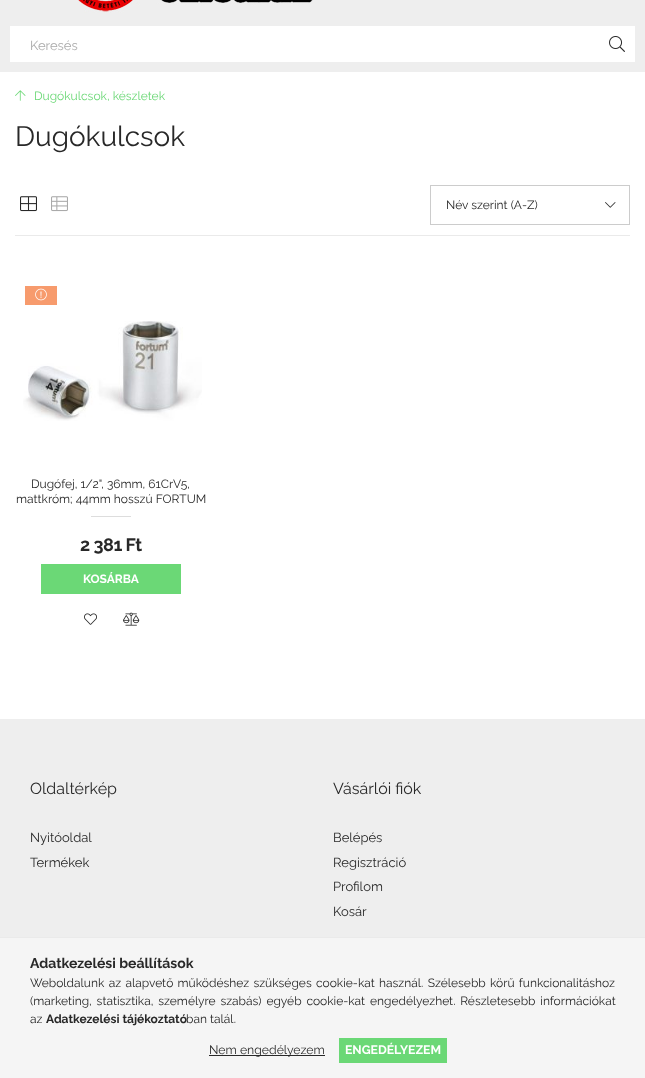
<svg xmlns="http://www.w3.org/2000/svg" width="645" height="1078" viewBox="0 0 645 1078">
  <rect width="100%" height="100%" fill="rgb(255,255,255)"/>
  <rect x="0" y="0" width="645" height="72" fill="rgb(238,238,238)"/>
  <image x="78" y="0" width="235" height="13" href="pic1.png"/>
  <rect x="10" y="26" width="625" height="36" fill="rgb(255,255,255)"/>
  <text x="30" y="50" font-family="Raleway" font-size="13" fill="rgb(170,170,170)">Keresés</text>
  <image x="609" y="36" width="16" height="16" href="pic2.png"/>
  <image x="15" y="90" width="11" height="11" href="pic3.png"/>
  <text x="34" y="100" font-family="Raleway" font-size="12" fill="rgb(107,216,118)">Dugókulcsok, készletek</text>
  <text x="15" y="146" font-family="Raleway" font-size="28" fill="rgb(40,40,40)">Dugókulcsok</text>
  <rect x="15" y="235" width="615" height="1" fill="rgb(234,234,234)"/>
  <image x="20" y="196" width="17" height="16" href="pic4.png"/>
  <image x="51" y="196" width="17" height="16" href="pic5.png"/>
  <rect x="430.5" y="185.5" width="199" height="39" fill="none" stroke="rgb(204,204,204)"/>
  <text x="446" y="209" font-family="Raleway" font-size="12" fill="rgb(40,40,40)">Név szerint (A-Z)</text>
  <image x="605" y="202" width="11" height="6" href="pic6.png"/>
  <rect x="25" y="286" width="32" height="19" fill="rgb(247,155,109)"/>
  <image x="35" y="288" width="12" height="13" href="pic7.png"/>
  <image x="23" y="321" width="179" height="100" href="pic8.png"/>
  <g font-family="Raleway" font-size="12" fill="rgb(40,40,40)">
    <text x="31" y="488">Dugófej, 1/2", 36mm, 61CrV5,</text>
    <text x="16" y="503">mattkróm; 44mm hosszú FORTUM</text>
  </g>
  <rect x="91" y="516" width="40" height="1" fill="rgb(221,221,221)"/>
  <text x="80" y="551" font-family="Raleway" font-size="18" font-weight="bold" letter-spacing="-0.5" fill="rgb(40,40,40)">2 381 Ft</text>
  <rect x="41" y="564" width="140" height="30" fill="rgb(107,216,118)"/>
  <text x="83" y="583" font-family="Raleway" font-size="12" font-weight="bold" fill="rgb(255,255,255)">KOSÁRBA</text>
  <image x="84" y="613" width="13" height="12" href="pic9.png"/>
  <image x="123" y="612" width="17" height="14" href="pic10.png"/>
  <rect x="0" y="719" width="645" height="218" fill="rgb(238,238,238)"/>
  <text x="30" y="794" font-family="Raleway" font-size="16" fill="rgb(40,40,40)">Oldaltérkép</text>
  <g font-family="Raleway" font-size="13" fill="rgb(40,40,40)">
    <text>
      <tspan x="30" y="842">Nyitóoldal</tspan>
      <tspan x="30" y="867">Termékek</tspan>
    </text>
  </g>
  <text x="333" y="794" font-family="Raleway" font-size="16" fill="rgb(40,40,40)">Vásárlói fiók</text>
  <g font-family="Raleway" font-size="13" fill="rgb(40,40,40)">
    <text>
      <tspan x="333" y="842">Belépés</tspan>
      <tspan x="333" y="867">Regisztráció</tspan>
      <tspan x="333" y="891">Profilom</tspan>
      <tspan x="333" y="916">Kosár</tspan>
    </text>
  </g>
  <rect x="0" y="938" width="645" height="140" fill="rgb(245,245,245)"/>
  <rect x="0" y="937" width="645" height="1" fill="rgb(234,234,234)"/>
  <text x="30" y="968" font-family="Raleway" font-size="14" font-weight="bold" fill="rgb(40,40,40)">Adatkezelési beállítások</text>
  <g font-family="Raleway" font-size="12" fill="rgb(40,40,40)">
    <text>
      <tspan x="30" y="987" word-spacing="1.25">Weboldalunk az alapvető működéshez szükséges cookie-kat használ. Szélesebb körű funkcionalitáshoz</tspan>
      <tspan x="30" y="1005" word-spacing="1.75">(marketing, statisztika, személyre szabás) egyéb cookie-kat engedélyezhet. Részletesebb információkat</tspan>
      <tspan x="30" y="1023">az</tspan>
    </text>
  </g>
  <text x="46" y="1023" font-family="Raleway" font-size="12" font-weight="bold" fill="rgb(40,40,40)">Adatkezelési tájékoztató</text>
  <text x="186" y="1023" font-family="Raleway" font-size="12" fill="rgb(40,40,40)">ban talál.</text>
  <rect x="209" y="1055" width="116" height="1" fill="rgb(40,40,40)"/>
  <text x="209" y="1054" font-family="Raleway" font-size="12.25" fill="rgb(40,40,40)">Nem engedélyezem</text>
  <rect x="339" y="1038" width="108" height="25" fill="rgb(107,216,118)"/>
  <text x="345" y="1054" font-family="Raleway" font-size="12.25" font-weight="bold" fill="rgb(255,255,255)">ENGEDÉLYEZEM</text>
</svg>
